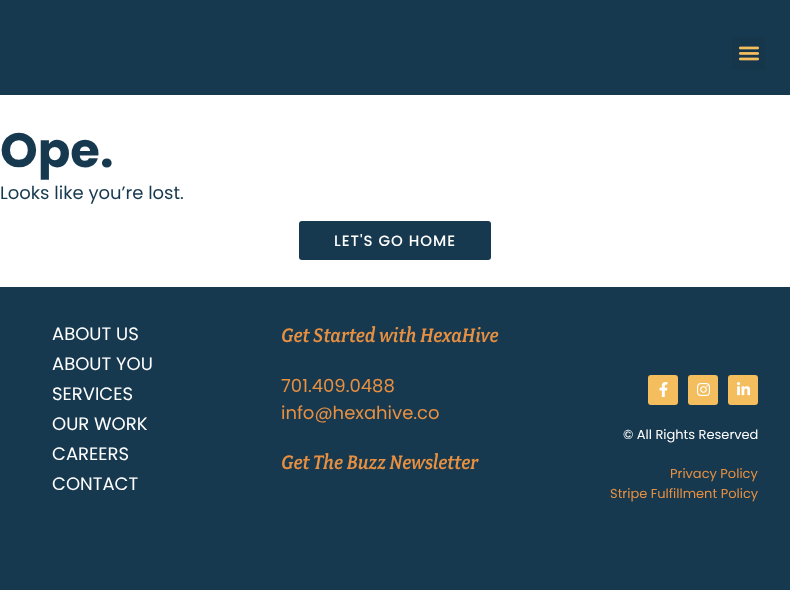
<svg xmlns="http://www.w3.org/2000/svg" width="790" height="590" viewBox="0 0 790 590">
  <rect width="100%" height="100%" fill="rgb(255,255,255)"/>
  <rect x="0" y="0" width="790" height="95" fill="rgb(23,57,79)"/>
  <rect x="732" y="37" width="33" height="33" rx="3" fill="rgb(22,54,75)"/>
  <image x="738" y="46" width="22" height="15" href="pic1.png"/>
  <text x="0" y="167" font-family="Poppins" font-size="48" font-weight="bold" fill="rgb(23,57,79)">Ope.</text>
  <text x="0" y="199" font-family="Poppins" font-size="18" fill="rgb(23,57,79)">Looks like you’re lost.</text>
  <rect x="299" y="221" width="192" height="39" rx="3" fill="rgb(23,57,79)"/>
  <text x="334" y="246" font-family="Poppins" font-size="15" font-weight="500" letter-spacing="1" fill="rgb(255,255,255)">LET'S GO HOME</text>
  <rect x="0" y="287" width="790" height="303" fill="rgb(23,57,79)"/>
  <g font-family="Poppins" font-size="18" fill="rgb(255,255,255)">
    <text>
      <tspan x="52" y="340">ABOUT US</tspan>
      <tspan x="52" y="370">ABOUT YOU</tspan>
      <tspan x="52" y="400">SERVICES</tspan>
      <tspan x="52" y="430">OUR WORK</tspan>
      <tspan x="52" y="460">CAREERS</tspan>
      <tspan x="52" y="490">CONTACT</tspan>
    </text>
  </g>
  <text x="281" y="342" font-family="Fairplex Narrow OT" font-size="22" font-weight="500" font-style="italic" fill="rgb(231,144,66)">Get Started with HexaHive</text>
  <g font-family="Poppins" font-size="18" fill="rgb(231,144,66)">
    <text>
      <tspan x="281" y="392">701.409.0488</tspan>
      <tspan x="281" y="419">info@hexahive.co</tspan>
    </text>
  </g>
  <text x="281" y="469" font-family="Fairplex Narrow OT" font-size="22" font-weight="500" font-style="italic" fill="rgb(231,144,66)">Get The Buzz Newsletter</text>
  <rect x="648" y="375" width="30" height="30" rx="3" fill="rgb(244,190,94)"/>
  <image x="659" y="382" width="9" height="15" href="pic2.png"/>
  <rect x="688" y="375" width="30" height="30" rx="3" fill="rgb(244,190,94)"/>
  <image x="697" y="383" width="13" height="13" href="pic3.png"/>
  <rect x="728" y="375" width="30" height="30" rx="3" fill="rgb(244,190,94)"/>
  <image x="737" y="382" width="14" height="14" href="pic4.png"/>
  <text x="623" y="439" font-family="Poppins" font-size="13" fill="rgb(255,255,255)">© All Rights Reserved</text>
  <g font-family="Poppins" font-size="13" fill="rgb(231,144,66)">
    <text x="670" y="478">Privacy Policy</text>
    <text x="610" y="498">Stripe Fulfillment Policy</text>
  </g>
</svg>
